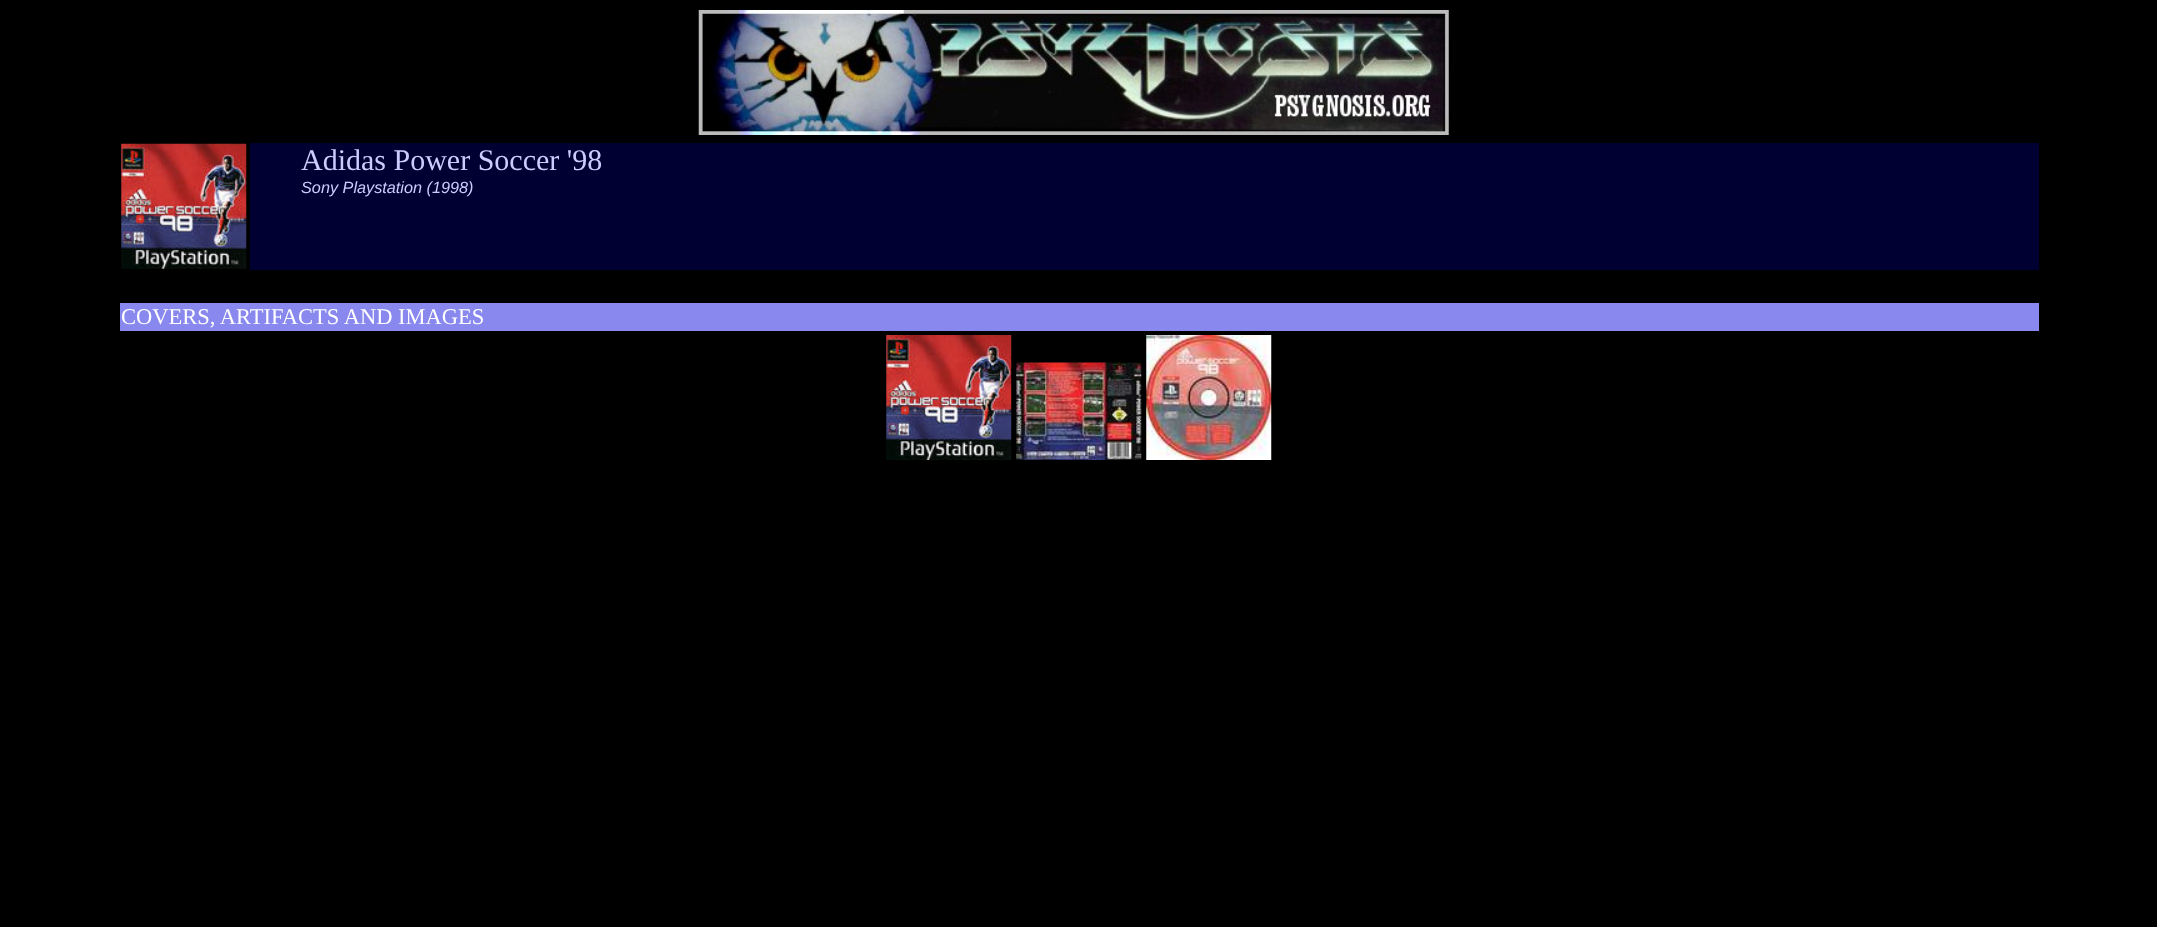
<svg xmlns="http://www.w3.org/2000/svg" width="2157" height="927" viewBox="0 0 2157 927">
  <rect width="100%" height="100%" fill="rgb(0,0,0)"/>
  <image x="698" y="10" width="751" height="125" href="pic1.png"/>
  <image x="121" y="143" width="126" height="126" href="pic2.png"/>
  <rect x="250" y="143" width="1789" height="127" fill="rgb(0,0,51)"/>
  <text x="301" y="170" font-family="Liberation Serif" font-size="30" fill="rgb(204,204,255)">Adidas Power Soccer '98</text>
  <text x="301" y="193" font-family="Liberation Sans" font-size="16.25" font-style="italic" fill="rgb(204,204,255)">Sony Playstation (1998)</text>
  <rect x="120" y="303" width="1919" height="28" fill="rgb(136,136,238)"/>
  <text x="121" y="324" font-family="Liberation Serif" font-size="22.5" fill="rgb(255,255,255)">COVERS, ARTIFACTS AND IMAGES</text>
  <image x="886" y="335" width="126" height="125" href="pic3.png"/>
  <image x="1016" y="362" width="126" height="98" href="pic4.png"/>
  <image x="1146" y="335" width="126" height="125" href="pic5.png"/>
</svg>
